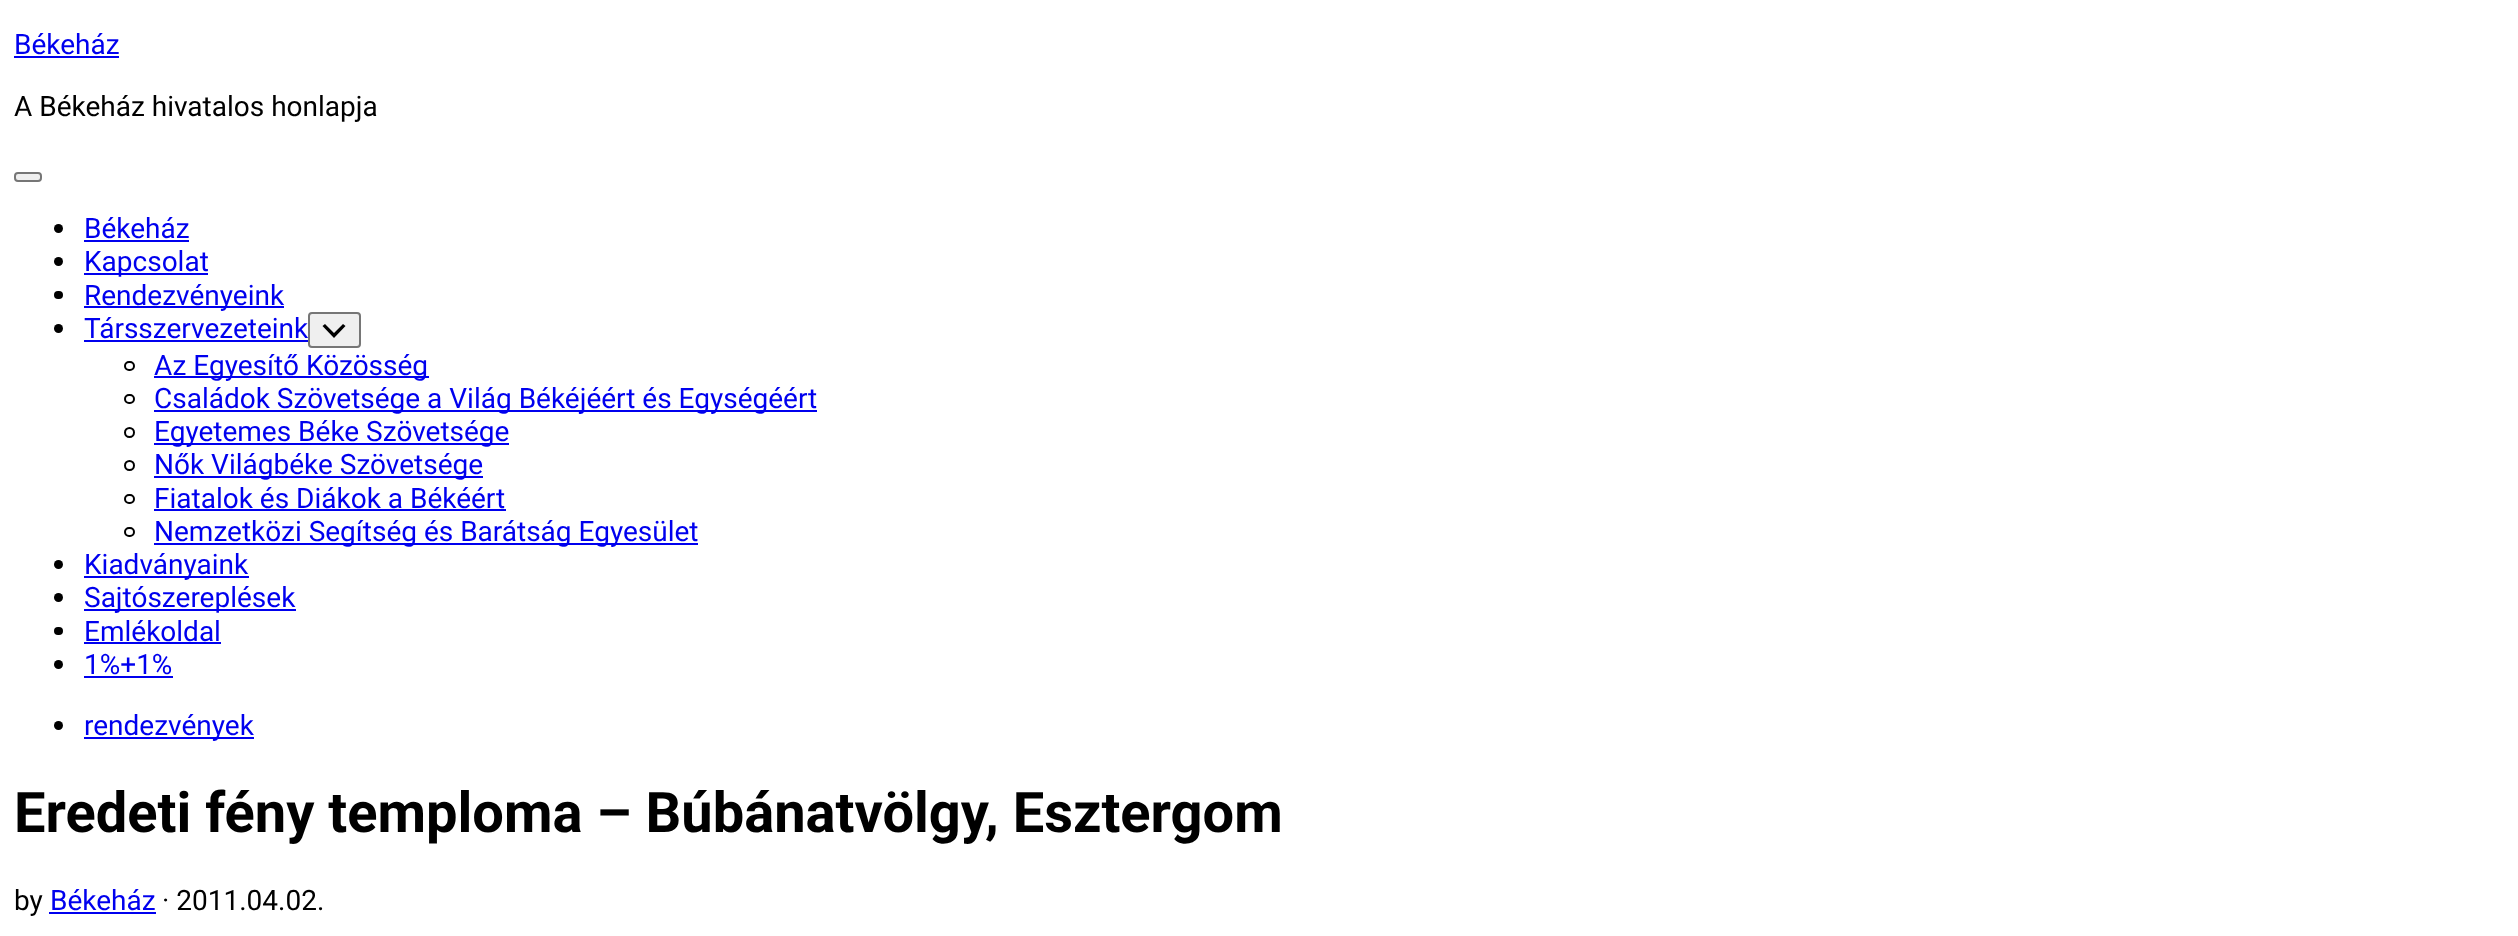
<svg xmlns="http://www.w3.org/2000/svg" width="2518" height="936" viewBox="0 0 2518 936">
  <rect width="100%" height="100%" fill="rgb(255,255,255)"/>
  <text x="14" y="54" font-family="Roboto" font-size="28" fill="rgb(0,0,238)">Békeház</text>
  <rect x="14" y="56" width="105" height="2" fill="rgb(0,0,238)"/>
  <text x="14" y="116" font-family="Roboto" font-size="28" fill="rgb(0,0,0)">A Békeház hivatalos honlapja</text>
  <rect x="15" y="173" width="26" height="8" rx="3" fill="rgb(239,239,239)" stroke="rgb(118,118,118)" stroke-width="2"/>
  <circle cx="58.5" cy="228.5" r="4.5" fill="rgb(0,0,0)"/>
  <text x="84" y="238" font-family="Roboto" font-size="28" fill="rgb(0,0,238)">Békeház</text>
  <rect x="84" y="240" width="105" height="2" fill="rgb(0,0,238)"/>
  <circle cx="58.5" cy="261.5" r="4.5" fill="rgb(0,0,0)"/>
  <rect x="84" y="273" width="124" height="2" fill="rgb(0,0,238)"/>
  <text x="84" y="271" font-family="Roboto" font-size="28" fill="rgb(0,0,238)">Kapcsolat</text>
  <rect x="54" y="291" width="9" height="8" rx="4" fill="rgb(0,0,0)"/>
  <rect x="84" y="306" width="200" height="2" fill="rgb(0,0,238)"/>
  <text x="84" y="305" font-family="Roboto" font-size="28" fill="rgb(0,0,238)">Rendezvényeink</text>
  <circle cx="58.5" cy="328.5" r="4.5" fill="rgb(0,0,0)"/>
  <text x="84" y="338" font-family="Roboto" font-size="28" fill="rgb(0,0,238)">Társszervezeteink</text>
  <rect x="84" y="340" width="224" height="2" fill="rgb(0,0,238)"/>
  <rect x="309" y="313" width="51" height="34" rx="3" fill="rgb(239,239,239)" stroke="rgb(118,118,118)" stroke-width="2"/>
  <path d="M334 333L343 324L345.5 326L334 338L322.5 326L325 324Z" fill="rgb(0,0,0)" fill-rule="evenodd"/>
  <rect x="125" y="362" width="9" height="8" rx="4" fill="none" stroke="rgb(0,0,0)" stroke-width="2"/>
  <rect x="154" y="376" width="275" height="2" fill="rgb(0,0,238)"/>
  <text x="154" y="375" font-family="Roboto" font-size="28" fill="rgb(0,0,238)">Az Egyesítő Közösség</text>
  <rect x="125" y="395" width="9" height="8" rx="4" fill="none" stroke="rgb(0,0,0)" stroke-width="2"/>
  <rect x="154" y="410" width="663" height="2" fill="rgb(0,0,238)"/>
  <text x="154" y="408" font-family="Roboto" font-size="28" fill="rgb(0,0,238)">Családok Szövetsége a Világ Békéjéért és Egységéért</text>
  <circle cx="129.5" cy="432.5" r="4.5" fill="none" stroke="rgb(0,0,0)" stroke-width="2"/>
  <rect x="154" y="443" width="355" height="2" fill="rgb(0,0,238)"/>
  <text x="154" y="441" font-family="Roboto" font-size="28" fill="rgb(0,0,238)">Egyetemes Béke Szövetsége</text>
  <circle cx="129.5" cy="465.5" r="4.5" fill="none" stroke="rgb(0,0,0)" stroke-width="2"/>
  <rect x="154" y="476" width="329" height="2" fill="rgb(0,0,238)"/>
  <text x="154" y="474" font-family="Roboto" font-size="28" fill="rgb(0,0,238)">Nők Világbéke Szövetsége</text>
  <rect x="125" y="495" width="9" height="8" rx="4" fill="none" stroke="rgb(0,0,0)" stroke-width="2"/>
  <text x="154" y="508" font-family="Roboto" font-size="28" fill="rgb(0,0,238)">Fiatalok és Diákok a Békéért</text>
  <rect x="154" y="509" width="352" height="2" fill="rgb(0,0,238)"/>
  <rect x="125" y="528" width="9" height="8" rx="4" fill="none" stroke="rgb(0,0,0)" stroke-width="2"/>
  <rect x="154" y="543" width="544" height="2" fill="rgb(0,0,238)"/>
  <text x="154" y="541" font-family="Roboto" font-size="28" fill="rgb(0,0,238)">Nemzetközi Segítség és Barátság Egyesület</text>
  <circle cx="58.5" cy="564.5" r="4.5" fill="rgb(0,0,0)"/>
  <rect x="84" y="576" width="165" height="2" fill="rgb(0,0,238)"/>
  <text x="84" y="574" font-family="Roboto" font-size="28" fill="rgb(0,0,238)">Kiadványaink</text>
  <circle cx="58.5" cy="597.5" r="4.5" fill="rgb(0,0,0)"/>
  <rect x="84" y="609" width="212" height="2" fill="rgb(0,0,238)"/>
  <text x="84" y="607" font-family="Roboto" font-size="28" fill="rgb(0,0,238)">Sajtószereplések</text>
  <rect x="54" y="627" width="9" height="8" rx="4" fill="rgb(0,0,0)"/>
  <text x="84" y="641" font-family="Roboto" font-size="28" fill="rgb(0,0,238)">Emlékoldal</text>
  <rect x="84" y="642" width="137" height="2" fill="rgb(0,0,238)"/>
  <circle cx="58.5" cy="664.5" r="4.5" fill="rgb(0,0,0)"/>
  <text x="84" y="674" font-family="Roboto" font-size="28" fill="rgb(0,0,238)">1%+1%</text>
  <rect x="84" y="676" width="89" height="2" fill="rgb(0,0,238)"/>
  <circle cx="58.5" cy="725.5" r="4.5" fill="rgb(0,0,0)"/>
  <rect x="84" y="737" width="170" height="2" fill="rgb(0,0,238)"/>
  <text x="84" y="735" font-family="Roboto" font-size="28" fill="rgb(0,0,238)">rendezvények</text>
  <text x="14" y="832" font-family="Roboto" font-size="56" font-weight="bold" fill="rgb(0,0,0)">Eredeti fény temploma – Búbánatvölgy, Esztergom</text>
  <text x="14" y="910" font-family="Roboto" font-size="28" fill="rgb(0,0,0)">by</text>
  <text x="50" y="910" font-family="Roboto" font-size="28" fill="rgb(0,0,238)">Békeház</text>
  <rect x="49" y="912" width="107" height="2" fill="rgb(0,0,238)"/>
  <text x="162" y="910" font-family="Roboto" font-size="28" fill="rgb(0,0,0)">· 2011.04.02.</text>
</svg>
